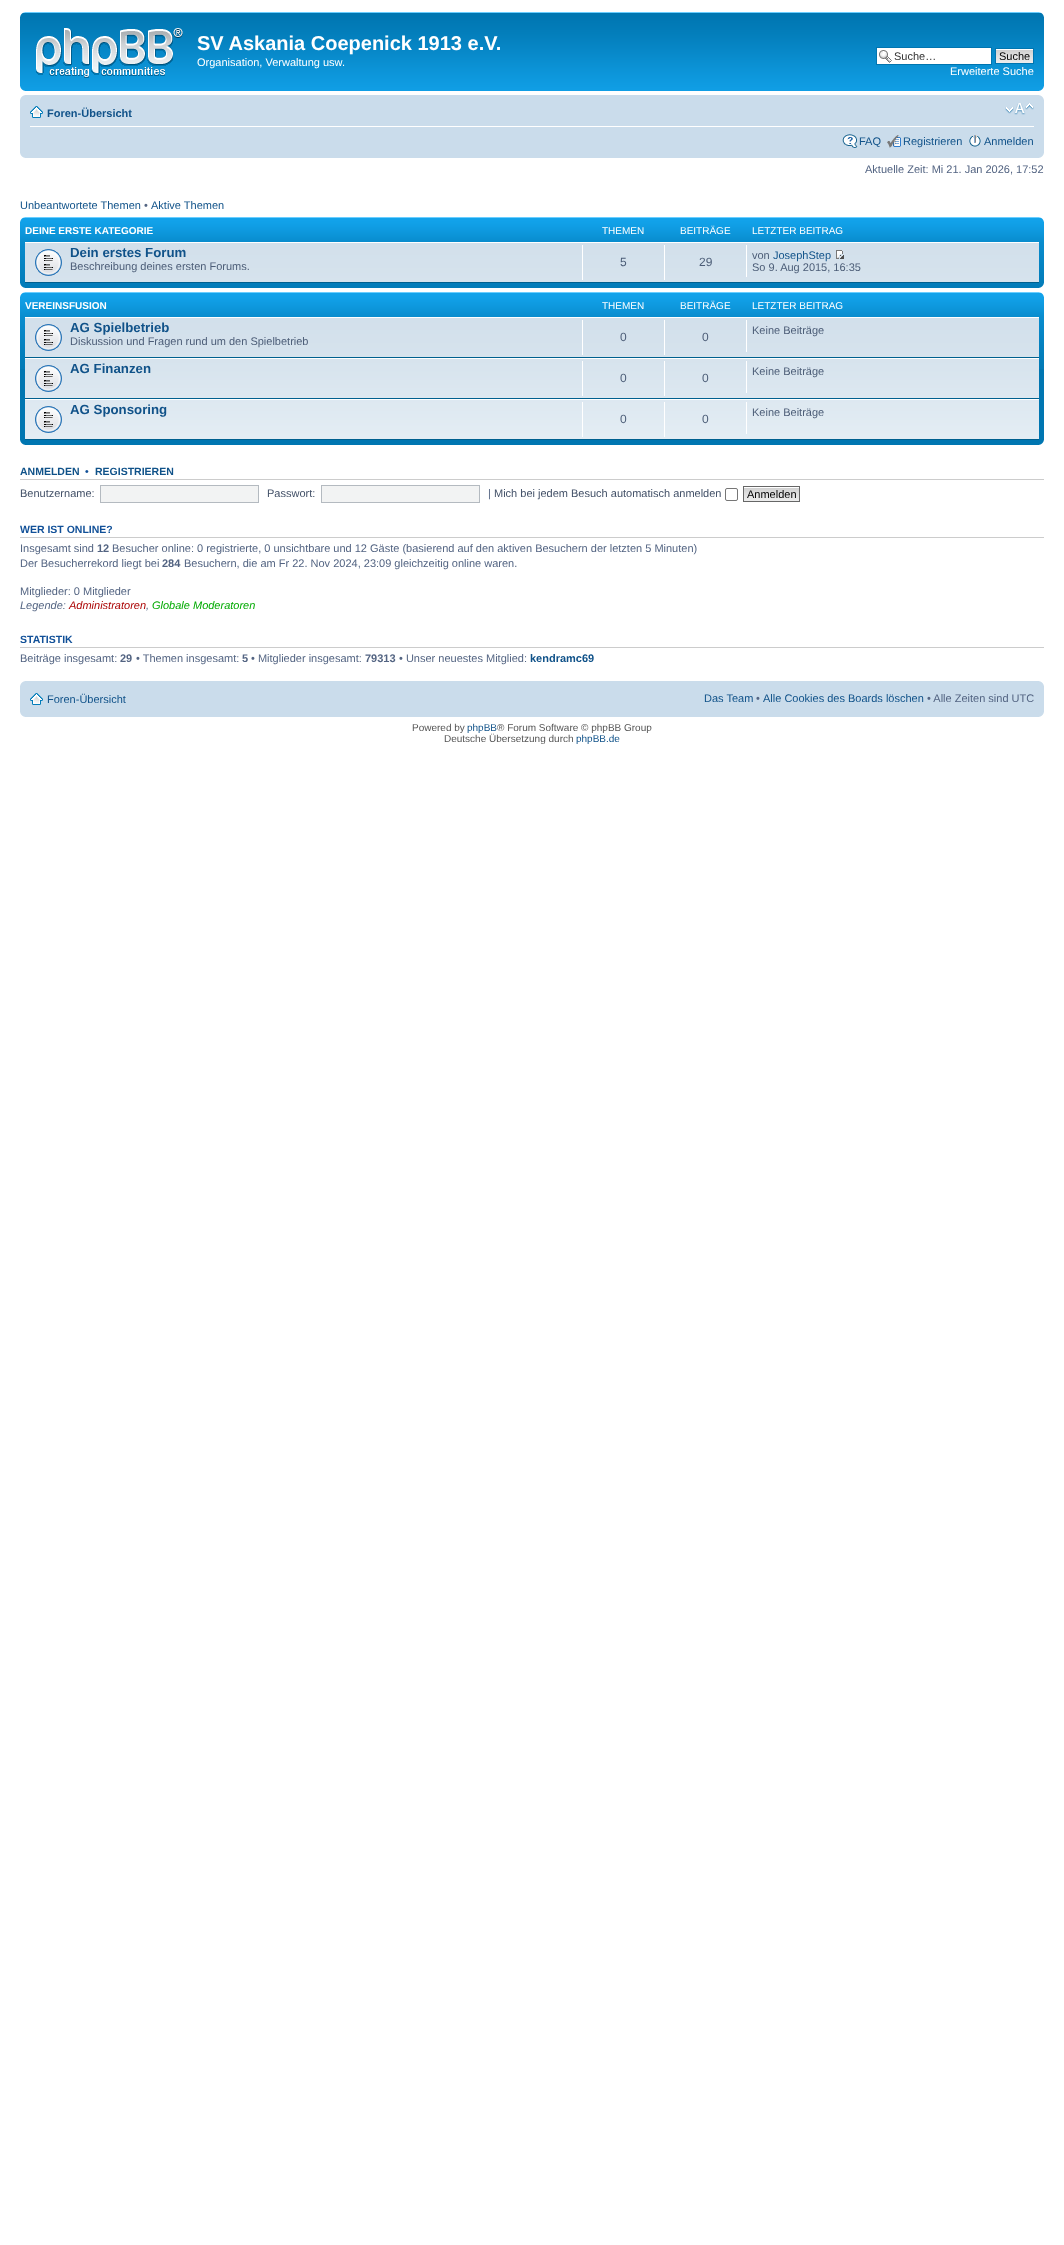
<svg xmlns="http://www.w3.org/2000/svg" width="1064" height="2245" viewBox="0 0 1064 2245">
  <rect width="100%" height="100%" fill="rgb(255,255,255)"/>
  <image x="20" y="12" width="1024" height="79" href="pic1.png"/>
  <image x="20" y="12" width="5" height="5" href="pic2.png"/>
  <image x="1039" y="12" width="5" height="5" href="pic3.png"/>
  <image x="36" y="28" width="147" height="50" href="pic4.png"/>
  <text x="197" y="50" font-family="Liberation Sans" font-size="20" font-weight="bold" fill="rgb(255,255,255)">SV Askania Coepenick 1913 e.V.</text>
  <text x="197" y="66" font-family="Liberation Sans" font-size="11" fill="rgb(255,255,255)">Organisation, Verwaltung usw.</text>
  <rect x="877" y="48" width="114" height="16" fill="rgb(255,255,255)"/>
  <image x="879" y="50" width="13" height="13" href="pic5.png"/>
  <rect x="876.5" y="47.5" width="115" height="17" fill="none" stroke="rgb(0,117,176)"/>
  <text x="894" y="60" font-family="Liberation Sans" font-size="11" fill="rgb(51,51,51)">Suche…</text>
  <image x="996" y="49" width="37" height="14" href="pic6.png"/>
  <rect x="995.5" y="48.5" width="38" height="15" fill="none" stroke="rgb(0,117,176)"/>
  <text x="999" y="60" font-family="Liberation Sans" font-size="11" fill="rgb(0,0,0)">Suche</text>
  <text x="950" y="75" font-family="Liberation Sans" font-size="11" fill="rgb(255,255,255)">Erweiterte Suche</text>
  <image x="20" y="86" width="5" height="5" href="pic7.png"/>
  <image x="1039" y="86" width="5" height="5" href="pic8.png"/>
  <rect x="20" y="95" width="1024" height="63" fill="rgb(202,220,235)"/>
  <image x="20" y="95" width="5" height="5" href="pic9.png"/>
  <image x="1039" y="95" width="5" height="5" href="pic10.png"/>
  <rect x="30" y="126" width="1004" height="1" fill="rgb(255,255,255)"/>
  <image x="30" y="106" width="13" height="12" href="pic11.png"/>
  <text x="47" y="117" font-family="Liberation Sans" font-size="11" font-weight="bold" fill="rgb(16,82,137)">Foren-Übersicht</text>
  <image x="1005" y="103" width="29" height="12" href="pic12.png"/>
  <image x="842" y="134" width="16" height="14" href="pic13.png"/>
  <text x="859" y="145" font-family="Liberation Sans" font-size="11" fill="rgb(16,82,137)">FAQ</text>
  <image x="887" y="135" width="14" height="13" href="pic14.png"/>
  <text x="903" y="145" font-family="Liberation Sans" font-size="11" fill="rgb(16,82,137)">Registrieren</text>
  <image x="969" y="135" width="12" height="12" href="pic15.png"/>
  <text x="984" y="145" font-family="Liberation Sans" font-size="11" fill="rgb(16,82,137)">Anmelden</text>
  <image x="20" y="153" width="5" height="5" href="pic16.png"/>
  <image x="1039" y="153" width="5" height="5" href="pic17.png"/>
  <text x="865" y="173" font-family="Liberation Sans" font-size="11" fill="rgb(83,100,130)">Aktuelle Zeit: Mi 21. Jan 2026, 17:52</text>
  <text x="20" y="209" font-family="Liberation Sans" font-size="11" fill="rgb(16,82,137)">Unbeantwortete Themen</text>
  <text x="144" y="209" font-family="Liberation Sans" font-size="11" fill="rgb(83,100,130)">•</text>
  <text x="151" y="209" font-family="Liberation Sans" font-size="11" fill="rgb(16,82,137)">Aktive Themen</text>
  <image x="20" y="217" width="1024" height="71" href="pic18.png"/>
  <image x="20" y="217" width="5" height="5" href="pic19.png"/>
  <image x="1039" y="217" width="5" height="5" href="pic20.png"/>
  <text x="25" y="234" font-family="Liberation Sans" font-size="10" font-weight="bold" fill="rgb(255,255,255)">DEINE ERSTE KATEGORIE</text>
  <g font-family="Liberation Sans" font-size="10" fill="rgb(255,255,255)">
    <text x="602" y="234">THEMEN</text>
    <text x="680" y="234">BEITRÄGE</text>
    <text x="752" y="234">LETZTER BEITRAG</text>
  </g>
  <image x="25" y="243" width="1014" height="39" href="pic21.png"/>
  <rect x="25" y="242" width="1014" height="1" fill="rgb(255,255,255)"/>
  <rect x="25" y="282" width="1014" height="1" fill="rgb(0,96,143)"/>
  <image x="35" y="249" width="27" height="27" href="pic22.png"/>
  <text x="70" y="257" font-family="Liberation Sans" font-size="13.25" font-weight="bold" fill="rgb(16,82,137)">Dein erstes Forum</text>
  <text x="70" y="270" font-family="Liberation Sans" font-size="11" fill="rgb(76,93,119)">Beschreibung deines ersten Forums.</text>
  <rect x="582" y="245" width="1" height="35" fill="rgb(255,255,255)"/>
  <text x="620" y="266" font-family="Liberation Sans" font-size="12" fill="rgb(76,93,119)">5</text>
  <rect x="664" y="245" width="1" height="35" fill="rgb(255,255,255)"/>
  <text x="699" y="266" font-family="Liberation Sans" font-size="12" fill="rgb(76,93,119)">29</text>
  <rect x="746" y="245" width="1" height="32" fill="rgb(255,255,255)"/>
  <text x="752" y="259" font-family="Liberation Sans" font-size="11" fill="rgb(76,93,119)">von</text>
  <text x="773" y="259" font-family="Liberation Sans" font-size="11" fill="rgb(16,82,137)">JosephStep</text>
  <image x="836" y="250" width="8" height="9" href="pic23.png"/>
  <text x="752" y="271" font-family="Liberation Sans" font-size="11" fill="rgb(76,93,119)">So 9. Aug 2015, 16:35</text>
  <image x="20" y="283" width="5" height="5" href="pic24.png"/>
  <image x="1039" y="283" width="5" height="5" href="pic25.png"/>
  <rect x="20" y="369" width="1024" height="76" fill="rgb(0,118,177)"/>
  <image x="20" y="292" width="1024" height="77" href="pic26.png"/>
  <image x="20" y="292" width="5" height="5" href="pic19.png"/>
  <image x="1039" y="292" width="5" height="5" href="pic20.png"/>
  <text x="25" y="309" font-family="Liberation Sans" font-size="10" font-weight="bold" fill="rgb(255,255,255)">VEREINSFUSION</text>
  <g font-family="Liberation Sans" font-size="10" fill="rgb(255,255,255)">
    <text x="602" y="309">THEMEN</text>
    <text x="680" y="309">BEITRÄGE</text>
    <text x="752" y="309">LETZTER BEITRAG</text>
  </g>
  <image x="25" y="318" width="1014" height="121" href="pic27.png"/>
  <rect x="25" y="317" width="1014" height="1" fill="rgb(255,255,255)"/>
  <rect x="25" y="357" width="1014" height="1" fill="rgb(0,96,143)"/>
  <image x="35" y="324" width="27" height="27" href="pic22.png"/>
  <text x="70" y="332" font-family="Liberation Sans" font-size="13.25" font-weight="bold" fill="rgb(16,82,137)">AG Spielbetrieb</text>
  <text x="70" y="345" font-family="Liberation Sans" font-size="11" fill="rgb(76,93,119)">Diskussion und Fragen rund um den Spielbetrieb</text>
  <rect x="582" y="320" width="1" height="35" fill="rgb(255,255,255)"/>
  <text x="620" y="341" font-family="Liberation Sans" font-size="12" fill="rgb(76,93,119)">0</text>
  <rect x="664" y="320" width="1" height="35" fill="rgb(255,255,255)"/>
  <text x="702" y="341" font-family="Liberation Sans" font-size="12" fill="rgb(76,93,119)">0</text>
  <rect x="746" y="320" width="1" height="32" fill="rgb(255,255,255)"/>
  <text x="752" y="334" font-family="Liberation Sans" font-size="11" fill="rgb(76,93,119)">Keine Beiträge</text>
  <rect x="25" y="358" width="1014" height="1" fill="rgb(255,255,255)"/>
  <rect x="25" y="398" width="1014" height="1" fill="rgb(0,96,143)"/>
  <image x="35" y="365" width="27" height="27" href="pic28.png"/>
  <text x="70" y="373" font-family="Liberation Sans" font-size="13.25" font-weight="bold" fill="rgb(16,82,137)">AG Finanzen</text>
  <rect x="582" y="361" width="1" height="35" fill="rgb(255,255,255)"/>
  <text x="620" y="382" font-family="Liberation Sans" font-size="12" fill="rgb(76,93,119)">0</text>
  <rect x="664" y="361" width="1" height="35" fill="rgb(255,255,255)"/>
  <text x="702" y="382" font-family="Liberation Sans" font-size="12" fill="rgb(76,93,119)">0</text>
  <rect x="746" y="361" width="1" height="32" fill="rgb(255,255,255)"/>
  <text x="752" y="375" font-family="Liberation Sans" font-size="11" fill="rgb(76,93,119)">Keine Beiträge</text>
  <rect x="25" y="399" width="1014" height="1" fill="rgb(255,255,255)"/>
  <rect x="25" y="439" width="1014" height="1" fill="rgb(0,96,143)"/>
  <image x="35" y="406" width="27" height="27" href="pic29.png"/>
  <text x="70" y="414" font-family="Liberation Sans" font-size="13.25" font-weight="bold" fill="rgb(16,82,137)">AG Sponsoring</text>
  <rect x="582" y="402" width="1" height="35" fill="rgb(255,255,255)"/>
  <text x="620" y="423" font-family="Liberation Sans" font-size="12" fill="rgb(76,93,119)">0</text>
  <rect x="664" y="402" width="1" height="35" fill="rgb(255,255,255)"/>
  <text x="702" y="423" font-family="Liberation Sans" font-size="12" fill="rgb(76,93,119)">0</text>
  <rect x="746" y="402" width="1" height="32" fill="rgb(255,255,255)"/>
  <text x="752" y="416" font-family="Liberation Sans" font-size="11" fill="rgb(76,93,119)">Keine Beiträge</text>
  <image x="20" y="440" width="5" height="5" href="pic30.png"/>
  <image x="1039" y="440" width="5" height="5" href="pic31.png"/>
  <rect x="20" y="479" width="1024" height="1" fill="rgb(204,204,204)"/>
  <text x="20" y="475" font-family="Liberation Sans" font-size="10.5" font-weight="bold" fill="rgb(16,82,137)">ANMELDEN</text>
  <text x="85" y="475" font-family="Liberation Sans" font-size="10.5" font-weight="bold" fill="rgb(17,80,152)">•</text>
  <text x="95" y="475" font-family="Liberation Sans" font-size="10.5" font-weight="bold" fill="rgb(16,82,137)">REGISTRIEREN</text>
  <text x="20" y="497" font-family="Liberation Sans" font-size="11" fill="rgb(66,80,103)">Benutzername:</text>
  <rect x="100.5" y="485.5" width="158" height="17" fill="rgb(242,243,243)" stroke="rgb(180,186,192)"/>
  <text x="267" y="497" font-family="Liberation Sans" font-size="11" fill="rgb(66,80,103)">Passwort:</text>
  <rect x="321.5" y="485.5" width="158" height="17" fill="rgb(242,243,243)" stroke="rgb(180,186,192)"/>
  <text x="488" y="497" font-family="Liberation Sans" font-size="11" fill="rgb(83,100,130)">|</text>
  <text x="494" y="497" font-family="Liberation Sans" font-size="11" fill="rgb(66,80,103)">Mich bei jedem Besuch automatisch anmelden</text>
  <rect x="725.5" y="488.5" width="12" height="12" rx="1.5" fill="none" stroke="rgb(118,118,118)"/>
  <image x="744" y="487" width="55" height="14" href="pic32.png"/>
  <rect x="743.5" y="486.5" width="56" height="15" fill="none" stroke="rgb(102,102,102)"/>
  <text x="747" y="498" font-family="Liberation Sans" font-size="11" fill="rgb(0,0,0)">Anmelden</text>
  <rect x="20" y="537" width="1024" height="1" fill="rgb(204,204,204)"/>
  <text x="20" y="533" font-family="Liberation Sans" font-size="10.5" font-weight="bold" fill="rgb(17,80,152)">WER IST ONLINE?</text>
  <text x="20" y="552" font-family="Liberation Sans" font-size="11" fill="rgb(83,100,130)">Insgesamt sind</text>
  <text x="97" y="552" font-family="Liberation Sans" font-size="11" font-weight="bold" fill="rgb(83,100,130)">12</text>
  <g font-family="Liberation Sans" font-size="11" fill="rgb(83,100,130)">
    <text x="112" y="552">Besucher online: 0 registrierte, 0 unsichtbare und 12 Gäste (basierend auf den aktiven Besuchern der letzten 5 Minuten)</text>
    <text x="20" y="567">Der Besucherrekord liegt bei</text>
  </g>
  <text x="162" y="567" font-family="Liberation Sans" font-size="11" font-weight="bold" fill="rgb(83,100,130)">284</text>
  <g font-family="Liberation Sans" font-size="11" fill="rgb(83,100,130)">
    <text x="184" y="567">Besuchern, die am Fr 22. Nov 2024, 23:09 gleichzeitig online waren.</text>
    <text x="20" y="595">Mitglieder: 0 Mitglieder</text>
  </g>
  <text x="20" y="609" font-family="Liberation Sans" font-size="11" font-style="italic" fill="rgb(83,100,130)">Legende:</text>
  <text x="69" y="609" font-family="Liberation Sans" font-size="11" font-style="italic" fill="rgb(170,0,0)">Administratoren</text>
  <text x="146" y="609" font-family="Liberation Sans" font-size="11" font-style="italic" fill="rgb(83,100,130)">,</text>
  <text x="152" y="609" font-family="Liberation Sans" font-size="11" font-style="italic" fill="rgb(0,170,0)">Globale Moderatoren</text>
  <rect x="20" y="647" width="1024" height="1" fill="rgb(204,204,204)"/>
  <text x="20" y="643" font-family="Liberation Sans" font-size="10.5" font-weight="bold" fill="rgb(17,80,152)">STATISTIK</text>
  <text x="20" y="662" font-family="Liberation Sans" font-size="11" fill="rgb(83,100,130)">Beiträge insgesamt:</text>
  <text x="120" y="662" font-family="Liberation Sans" font-size="11" font-weight="bold" fill="rgb(83,100,130)">29</text>
  <text x="136" y="662" font-family="Liberation Sans" font-size="11" fill="rgb(83,100,130)">• Themen insgesamt:</text>
  <text x="242" y="662" font-family="Liberation Sans" font-size="11" font-weight="bold" fill="rgb(83,100,130)">5</text>
  <text x="251" y="662" font-family="Liberation Sans" font-size="11" fill="rgb(83,100,130)">• Mitglieder insgesamt:</text>
  <text x="365" y="662" font-family="Liberation Sans" font-size="11" font-weight="bold" fill="rgb(83,100,130)">79313</text>
  <text x="399" y="662" font-family="Liberation Sans" font-size="11" fill="rgb(83,100,130)">• Unser neuestes Mitglied:</text>
  <text x="530" y="662" font-family="Liberation Sans" font-size="11" font-weight="bold" fill="rgb(16,82,137)">kendramc69</text>
  <rect x="20" y="681" width="1024" height="36" fill="rgb(202,220,235)"/>
  <image x="20" y="681" width="5" height="5" href="pic9.png"/>
  <image x="1039" y="681" width="5" height="5" href="pic10.png"/>
  <image x="30" y="693" width="13" height="12" href="pic11.png"/>
  <g font-family="Liberation Sans" font-size="11" fill="rgb(16,82,137)">
    <text x="47" y="703">Foren-Übersicht</text>
    <text x="704" y="702">Das Team</text>
  </g>
  <text x="756" y="702" font-family="Liberation Sans" font-size="11" fill="rgb(83,100,130)">•</text>
  <text x="763" y="702" font-family="Liberation Sans" font-size="11" fill="rgb(16,82,137)">Alle Cookies des Boards löschen</text>
  <text x="927" y="702" font-family="Liberation Sans" font-size="11" fill="rgb(83,100,130)">• Alle Zeiten sind UTC</text>
  <image x="20" y="712" width="5" height="5" href="pic16.png"/>
  <image x="1039" y="712" width="5" height="5" href="pic17.png"/>
  <text x="412" y="731" font-family="Liberation Sans" font-size="10" fill="rgb(85,85,85)">Powered by</text>
  <text x="467" y="731" font-family="Liberation Sans" font-size="10" fill="rgb(16,82,137)">phpBB</text>
  <g font-family="Liberation Sans" font-size="10" fill="rgb(85,85,85)">
    <text x="497" y="731">® Forum Software © phpBB Group</text>
    <text x="444" y="742">Deutsche Übersetzung durch</text>
  </g>
  <text x="576" y="742" font-family="Liberation Sans" font-size="10" fill="rgb(16,82,137)">phpBB.de</text>
</svg>
